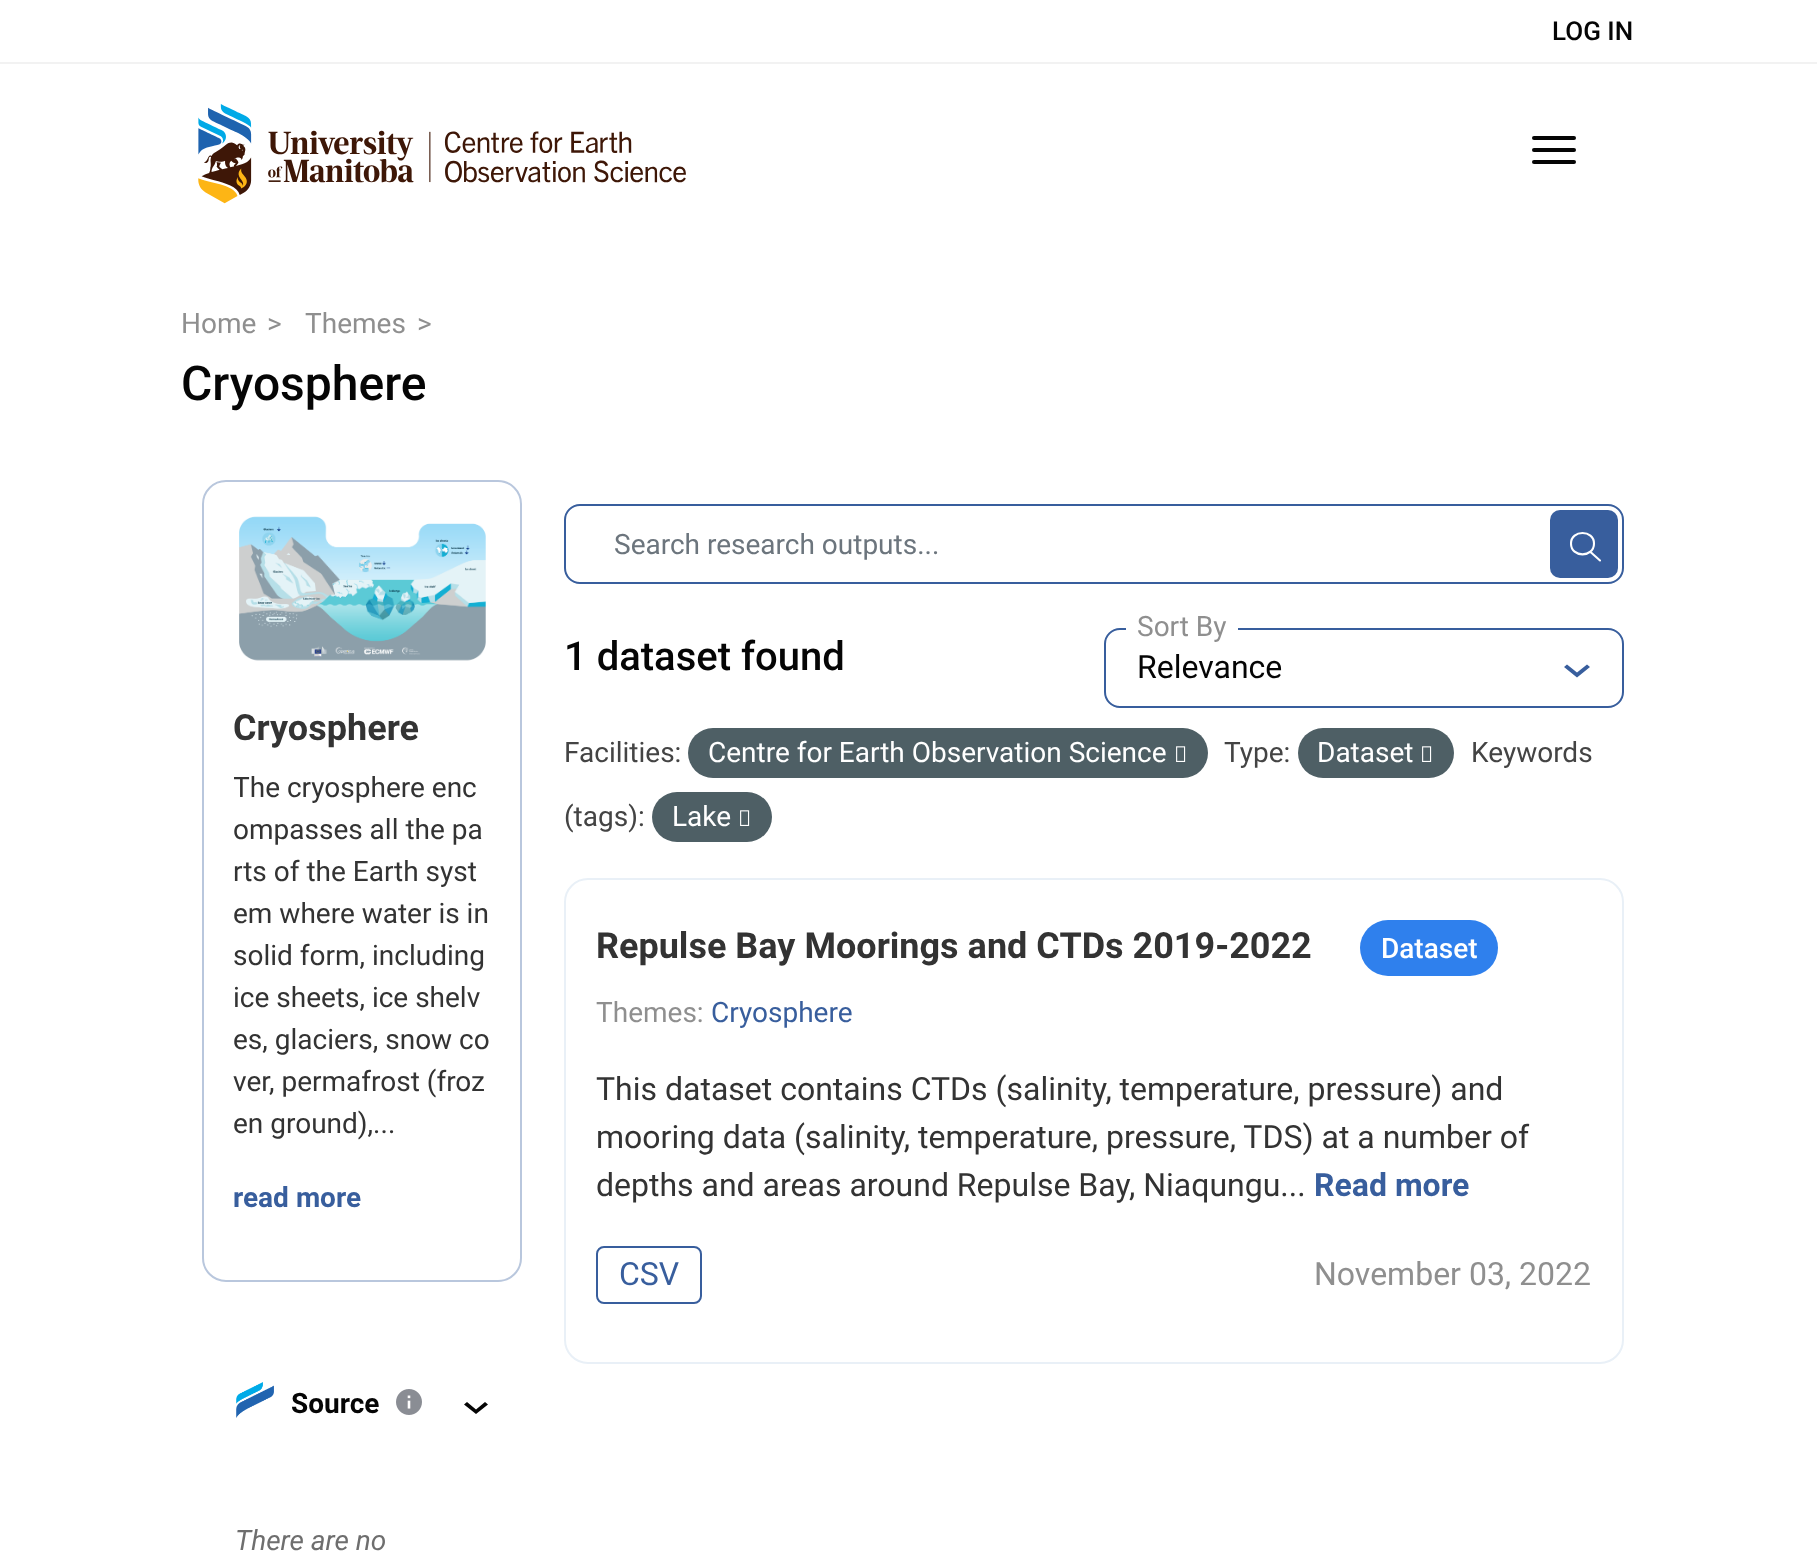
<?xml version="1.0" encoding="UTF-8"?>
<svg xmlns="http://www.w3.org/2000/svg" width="1817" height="1562">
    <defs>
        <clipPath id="clip1"><rect x="234" y="766" width="256" height="378"/></clipPath>
    </defs>
    <rect width="100%" height="100%" fill="#FFFFFF"/>
    <rect x="0" y="62" width="1817" height="2" fill="#F2F2F2"/>
    <text x="1552" y="40" font-family="Roboto" font-size="26" font-weight="500" fill="#050505">LOG IN</text>
    <image x="198" y="104" width="488" height="100" href="img_01.png"/>
    <rect x="1532" y="136" width="44" height="4" rx="2" fill="#050505"/>
    <rect x="1532" y="148" width="44" height="4" rx="2" fill="#050505"/>
    <rect x="1532" y="160" width="44" height="4" rx="2" fill="#050505"/>
    <text x="181" y="333" font-family="Roboto" font-size="28" fill="#8F8F8F">Home</text>
    <text x="267" y="333" font-family="Roboto" font-size="28" fill="#8F8F8F">&gt;</text>
    <text x="305" y="333" font-family="Roboto" font-size="28" fill="#8F8F8F">Themes</text>
    <text x="417" y="333" font-family="Roboto" font-size="28" fill="#8F8F8F">&gt;</text>
    <text x="181" y="400" font-family="Roboto" font-size="48" font-weight="500" fill="#050505">Cryosphere</text>
    <rect x="203" y="481" width="318" height="800" rx="23" fill="none" stroke="#B9C7DD" stroke-width="2"/>
    <image x="239" y="516" width="247" height="145" href="img_02.png"/>
    <text x="233" y="740" font-family="Roboto" font-size="36" font-weight="700" fill="#333333">Cryosphere</text>
    <g clip-path="url(#clip1)">
        <text x="233" y="797" font-family="Roboto" font-size="28" fill="#333333">The cryosphere enc</text>
    </g>
    <text font-family="Roboto" font-size="28" fill="#333333">
        <tspan x="233" y="839">ompasses all the pa</tspan>
        <tspan x="233" y="881">rts of the Earth syst</tspan>
        <tspan x="233" y="923">em where water is in</tspan>
        <tspan x="233" y="965">solid form, including</tspan>
        <tspan x="233" y="1007">ice sheets, ice shelv</tspan>
        <tspan x="233" y="1049">es, glaciers, snow co</tspan>
        <tspan x="233" y="1091">ver, permafrost (froz</tspan>
        <tspan x="233" y="1133">en ground),...</tspan>
    </text>
    <text x="233" y="1207" font-family="Roboto" font-size="28" font-weight="700" fill="#385E9D">read more</text>
    <image x="236" y="1382" width="38" height="36" href="img_03.png"/>
    <text x="291" y="1413" font-family="Roboto" font-size="28" font-weight="700" fill="#050505">Source</text>
    <image x="396" y="1389" width="26" height="26" href="img_04.png"/>
    <path d="M 464 1404.5 L 467 1402 L 476 1409.5 L 485 1402 L 488 1404.5 L 476 1414 Z" fill="#050505"/>
    <text x="235" y="1550" font-family="Roboto" font-size="28" font-style="italic" fill="#6E6E6E">There are no</text>
    <rect x="565" y="505" width="1058" height="78" rx="15" fill="none" stroke="#385E9D" stroke-width="2"/>
    <text x="614" y="554" font-family="Roboto" font-size="28" fill="#6C757D">Search research outputs...</text>
    <rect x="1550" y="510" width="68" height="68" rx="10" fill="#385E9D"/>
    <path d="M 1594 543.5 C 1594 558 1571 558 1571 543.5 C 1571 529.5 1594 529.5 1594 543.5 Z M 1590.5 552 L 1600 560.5" fill="none" stroke="#FFFFFF" stroke-width="2.1" stroke-linecap="round"/>
    <text x="564" y="670" font-family="Roboto" font-size="40" font-weight="500" fill="#050505">1 dataset found</text>
    <rect x="1105" y="629" width="518" height="78" rx="15" fill="none" stroke="#385E9D" stroke-width="2"/>
    <rect x="1126" y="628" width="112" height="2" fill="#FFFFFF"/>
    <text x="1137" y="636" font-family="Roboto" font-size="28" fill="#8F8F8F">Sort By</text>
    <text x="1137" y="678" font-family="Roboto" font-size="32" fill="#050505">Relevance</text>
    <path d="M 1564 667 L 1567 664.5 L 1577 672.5 L 1587 664.5 L 1590 667 L 1577 677.5 Z" fill="#385E9D"/>
    <text x="564" y="762" font-family="Roboto" font-size="28" fill="#444444">Facilities:</text>
    <rect x="688" y="728" width="520" height="50" rx="25" fill="#4E5F65"/>
    <text x="708" y="762" font-family="Roboto" font-size="28" fill="#FFFFFF">Centre for Earth Observation Science</text>
    <image x="1176" y="746" width="10" height="16" href="img_05.png"/>
    <text x="1224" y="762" font-family="Roboto" font-size="28" fill="#444444">Type:</text>
    <rect x="1298" y="728" width="156" height="50" rx="25" fill="#4E5F65"/>
    <text x="1317" y="762" font-family="Roboto" font-size="28" fill="#FFFFFF">Dataset</text>
    <image x="1422" y="746" width="10" height="16" href="img_05.png"/>
    <text x="1471" y="762" font-family="Roboto" font-size="28" fill="#444444">Keywords</text>
    <text x="564" y="826" font-family="Roboto" font-size="28" fill="#444444">(tags):</text>
    <rect x="652" y="792" width="120" height="50" rx="25" fill="#4E5F65"/>
    <text x="672" y="826" font-family="Roboto" font-size="28" fill="#FFFFFF">Lake</text>
    <image x="740" y="810" width="10" height="16" href="img_05.png"/>
    <rect x="565" y="879" width="1058" height="484" rx="23" fill="none" stroke="#E9F0F7" stroke-width="2"/>
    <text x="596" y="958" font-family="Roboto" font-size="36" font-weight="700" fill="#333333">Repulse Bay Moorings and CTDs 2019-2022</text>
    <rect x="1360" y="920" width="138" height="56" rx="28" fill="#2F80ED"/>
    <text x="1381" y="958" font-family="Roboto" font-size="28" font-weight="500" fill="#FFFFFF">Dataset</text>
    <text x="596" y="1022" font-family="Roboto" font-size="28" fill="#8F8F8F">Themes:</text>
    <text x="711" y="1022" font-family="Roboto" font-size="28" fill="#385E9D">Cryosphere</text>
    <text font-family="Roboto" font-size="32" fill="#333333">
        <tspan x="596" y="1100">This dataset contains CTDs (salinity, temperature, pressure) and</tspan>
        <tspan x="596" y="1148">mooring data (salinity, temperature, pressure, TDS) at a number of</tspan>
        <tspan x="596" y="1196">depths and areas around Repulse Bay, Niaqungu...</tspan>
    </text>
    <text x="1314" y="1196" font-family="Roboto" font-size="32" font-weight="700" fill="#385E9D">Read more</text>
    <rect x="597" y="1247" width="104" height="56" rx="7" fill="none" stroke="#385E9D" stroke-width="2"/>
    <text x="619" y="1285" font-family="Roboto" font-size="32" fill="#385E9D">CSV</text>
    <text x="1314" y="1285" font-family="Roboto" font-size="32" fill="#8F8F8F">November 03, 2022</text>
</svg>
